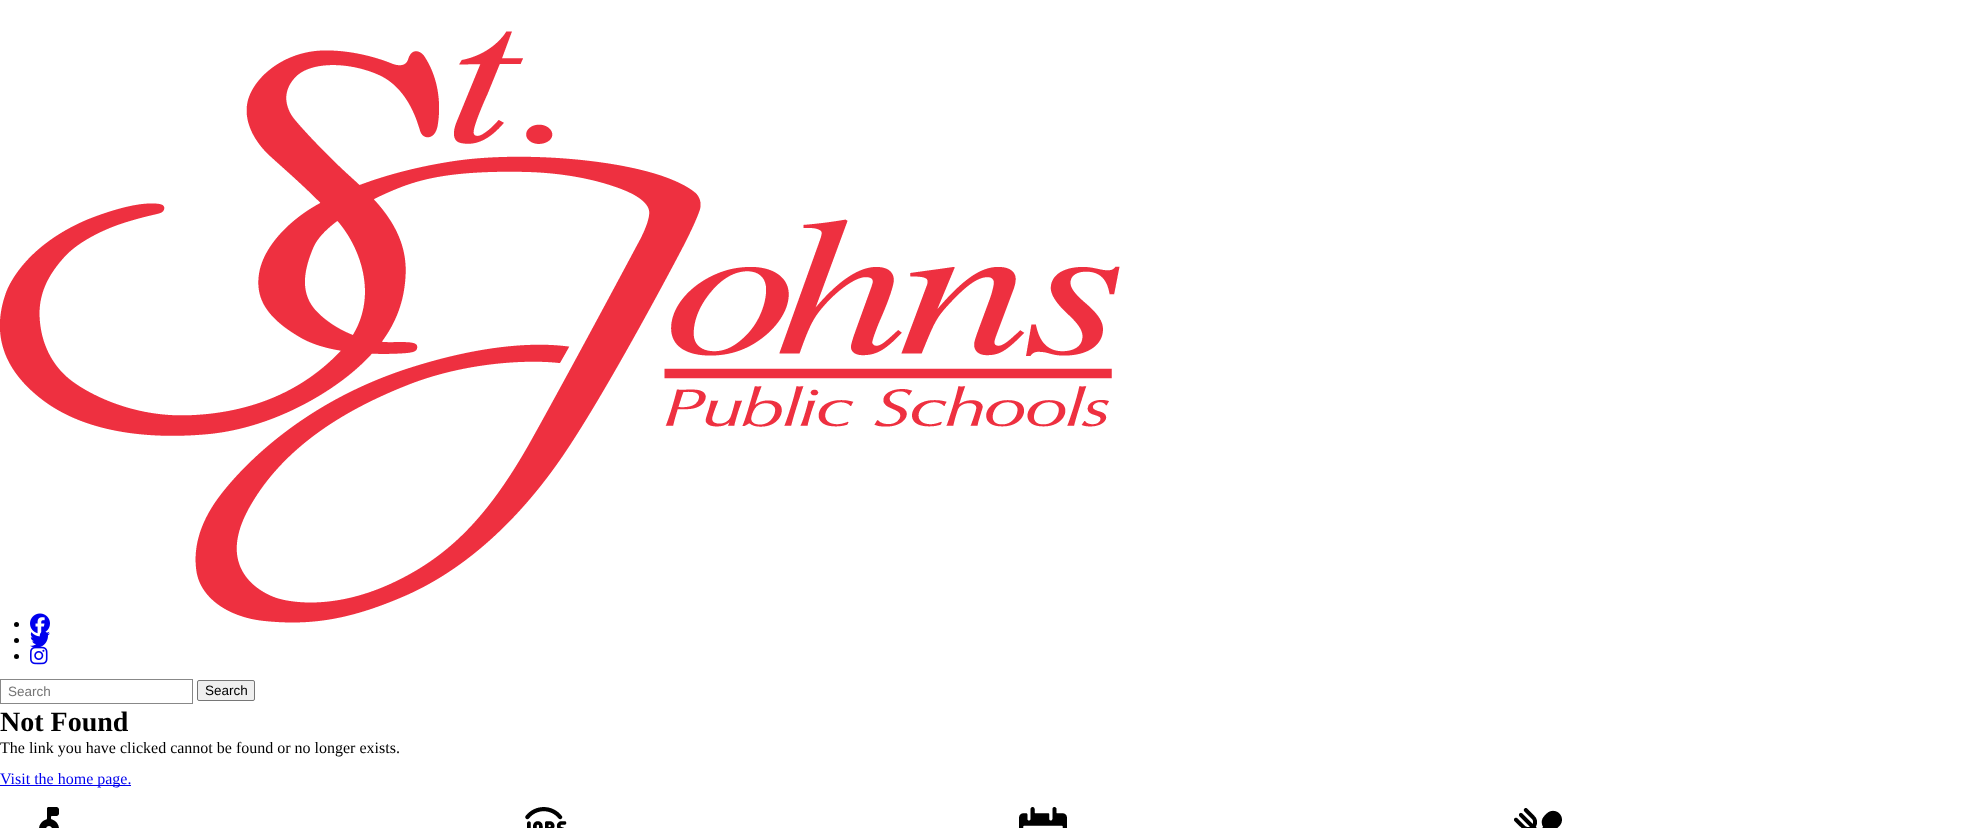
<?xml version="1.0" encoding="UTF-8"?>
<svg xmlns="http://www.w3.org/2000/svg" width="1986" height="828">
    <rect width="100%" height="100%" fill="#FFFFFF"/>
    <image x="0" y="31" width="1120" height="592" href="img_01.png"/>
    <circle cx="16.5" cy="624.5" r="2.5" fill="#000000"/>
    <image x="30" y="613" width="20" height="21" href="img_02.png"/>
    <circle cx="16.5" cy="640.5" r="2.5" fill="#000000"/>
    <image x="30" y="631" width="20" height="17" href="img_03.png"/>
    <circle cx="16.5" cy="656.5" r="2.5" fill="#000000"/>
    <image x="30" y="646" width="18" height="19" href="img_04.png"/>
    <rect x="0.5" y="679.5" width="192" height="24" fill="none" stroke="#888888"/>
    <text x="8" y="696" font-family="Liberation Sans" font-size="13.5" fill="#757575">Search</text>
    <rect x="197.5" y="680.5" width="57" height="20" rx="1.5" fill="#EFEFEF" stroke="#767676"/>
    <text x="205" y="695" font-family="Liberation Sans" font-size="13.5" fill="#000000">Search</text>
    <text x="0" y="731" font-family="Liberation Serif" font-size="28" font-weight="700" fill="#000000">Not Found</text>
    <text x="0" y="753" font-family="Liberation Serif" font-size="16" fill="#000000">The link you have clicked cannot be found or no longer exists.</text>
    <rect x="0" y="785" width="131" height="1" fill="#0000EE"/>
    <text x="0" y="784" font-family="Liberation Serif" font-size="16" fill="#0000EE">Visit the home page.</text>
    <image x="39" y="807" width="20" height="21" href="img_05.png"/>
    <image x="525" y="807" width="42" height="21" href="img_06.png"/>
    <image x="1019" y="807" width="48" height="21" href="img_07.png"/>
    <image x="1514" y="808" width="48" height="20" href="img_08.png"/>
</svg>
